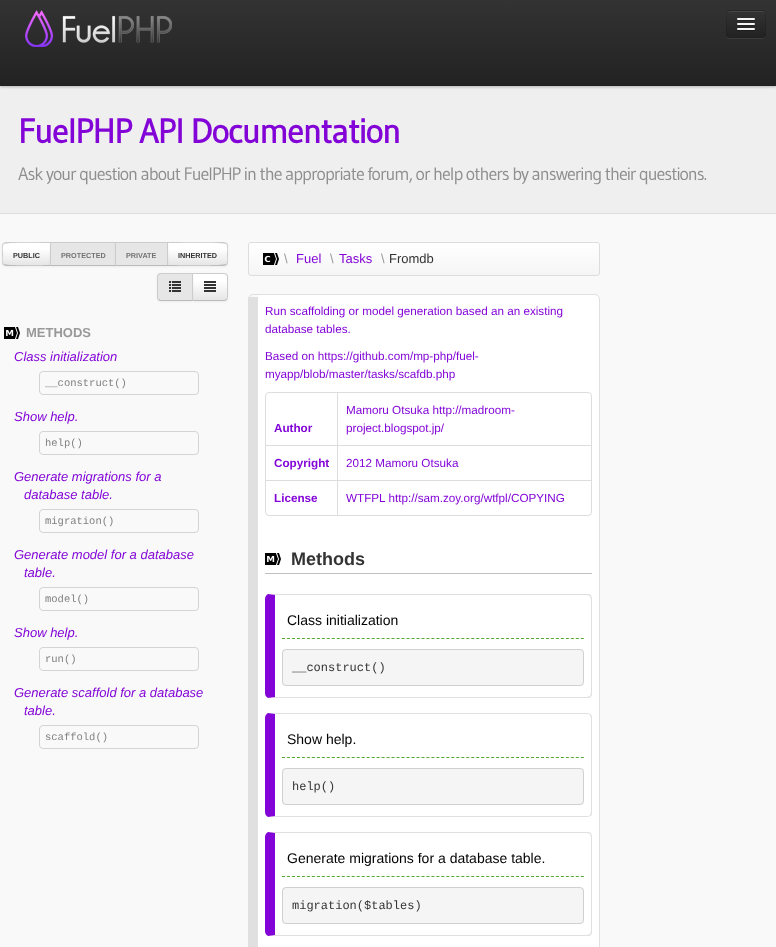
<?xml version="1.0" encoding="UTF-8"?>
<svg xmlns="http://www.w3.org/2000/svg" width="776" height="947">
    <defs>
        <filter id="blur1" x="-50%" y="-200%" width="200%" height="500%"><feGaussianBlur stdDeviation="1.5"/></filter>
        <linearGradient id="g1" gradientUnits="userSpaceOnUse" x1="388" y1="0" x2="388" y2="86"><stop offset="0" stop-color="#333333"/><stop offset="1" stop-color="#222222"/></linearGradient>
        <clipPath id="clip1"><rect x="726" y="10" width="40" height="28" rx="4"/></clipPath>
        <linearGradient id="g2" gradientUnits="userSpaceOnUse" x1="746" y1="11" x2="746" y2="37"><stop offset="0" stop-color="#333333"/><stop offset="1" stop-color="#222222"/></linearGradient>
        <filter id="blur2" x="-50%" y="-200%" width="200%" height="500%"><feGaussianBlur stdDeviation="1"/></filter>
        <linearGradient id="g3" gradientUnits="userSpaceOnUse" x1="27" y1="243" x2="27" y2="265"><stop offset="0" stop-color="#FFFFFF"/><stop offset="0.25" stop-color="#FFFFFF"/><stop offset="1" stop-color="#E6E6E6"/></linearGradient>
        <linearGradient id="g4" gradientUnits="userSpaceOnUse" x1="198" y1="243" x2="198" y2="265"><stop offset="0" stop-color="#FFFFFF"/><stop offset="0.25" stop-color="#FFFFFF"/><stop offset="1" stop-color="#E6E6E6"/></linearGradient>
        <linearGradient id="g5" gradientUnits="userSpaceOnUse" x1="210" y1="274" x2="210" y2="300"><stop offset="0" stop-color="#FFFFFF"/><stop offset="0.25" stop-color="#FFFFFF"/><stop offset="1" stop-color="#E6E6E6"/></linearGradient>
        <clipPath id="clip2"><rect x="248" y="242" width="352" height="34" rx="3"/></clipPath>
        <linearGradient id="g6" gradientUnits="userSpaceOnUse" x1="424" y1="243" x2="424" y2="275"><stop offset="0" stop-color="#FFFFFF"/><stop offset="1" stop-color="#F5F5F5"/></linearGradient>
    </defs>
    <rect width="100%" height="100%" fill="#F9F9F9"/>
    <rect x="0" y="86" width="776" height="127" fill="#EFEFEF"/>
    <rect x="0" y="213" width="776" height="1" fill="#DEDEDE"/>
    <rect x="0" y="1" width="776" height="86" fill="#000000" fill-opacity="0.25" filter="url(#blur1)"/>
    <rect x="0" y="0" width="776" height="85" fill="url(#g1)"/>
    <rect x="0" y="85" width="776" height="1" fill="#1F1F1F"/>
    <image x="25" y="10" width="147" height="37" href="img_01.png"/>
    <path d="M 726 34 C 726 40 731 39 735 39 H 757 C 761 39 766 40 766 34 C 766 36 764 38 762 38 H 730 C 728 38 726 36 726 34 Z" fill="#3B3B3B"/>
    <rect x="726" y="10" width="40" height="28" rx="4" fill="#2C2C2C"/>
    <g clip-path="url(#clip1)">
        <rect x="726" y="11" width="40" height="26" fill="url(#g2)"/>
    </g>
    <path d="M 730 12 H 762 C 764 12 765 13 765 15 C 765 10 761 11 756.5 11 H 735.5 C 731 11 727 10 727 15 C 727 13 728 12 730 12 Z" fill="#474747"/>
    <path d="M 764.5 36.5 C 764 37 763 37.5 762 37.5 H 730 C 729 37.5 728 37 727.5 36.5" fill="none" stroke="#212121"/>
    <path d="M 727.5 36.5 C 727 36 726.5 35 726.5 34 V 14 C 726.5 13 727 12 727.5 11.5 C 728 11 729 10.5 730 10.5 H 762 C 763 10.5 764 11 764.5 11.5 C 765 12 765.5 13 765.5 14 V 34 C 765.5 35 765 36 764.5 36.5" fill="none" stroke="#000000" stroke-opacity="0.1"/>
    <path d="M 737 19.5 C 736 21.5 740.5 21 740.5 21 H 751.5 C 751.5 21 756 21.5 755 19.5 C 754 20.5 747.5 20 746 20 C 744.5 20 738 20.5 737 19.5 Z" fill="#222222"/>
    <rect x="737" y="18" width="18" height="2" rx="1" fill="#F5F5F5"/>
    <path d="M 737 24.5 C 736 26.5 740.5 26 740.5 26 H 751.5 C 751.5 26 756 26.5 755 24.5 C 754 25.5 747.5 25 746 25 C 744.5 25 738 25.5 737 24.5 Z" fill="#202020"/>
    <rect x="737" y="23" width="18" height="2" rx="1" fill="#F5F5F5"/>
    <path d="M 737 29.5 C 736 31.5 740.5 31 740.5 31 H 751.5 C 751.5 31 756 31.5 755 29.5 C 754 30.5 747.5 30 746 30 C 744.5 30 738 30.5 737 29.5 Z" fill="#1D1D1D"/>
    <rect x="737" y="28" width="18" height="2" rx="1" fill="#F5F5F5"/>
    <text x="18" y="143" font-family="Gudea" font-size="34" font-weight="700" letter-spacing="-1" fill="#8304D7">FuelPHP API Documentation</text>
    <text x="18" y="180" font-family="Gudea" font-size="18" letter-spacing="-1" fill="#8E8E8E">Ask your question about FuelPHP in the appropriate forum, or help others by answering their questions.</text>
    <rect x="2" y="243" width="49" height="24" rx="4" fill="#000000" fill-opacity="0.05" filter="url(#blur2)"/>
    <path d="M 6 242 H 51 V 266 H 6 C 4 266 2 264 2 262 V 246 C 2 244 4 242 6 242 Z" fill="#FAFAFA"/>
    <rect x="3" y="243" width="47" height="22" fill="url(#g3)"/>
    <path d="M 6 242 L 3 243 L 4 244 C 6 242 45 243 50 243 L 51 242 Z" fill="#CCCCCC"/>
    <path d="M 51 266 L 50 265 C 45 265 6 266 4 264 L 3 265 L 6 266 Z" fill="#BBBBBB"/>
    <path d="M 2 246 V 262 C 2 263 2.5 264 3 265 L 4 264 C 2 262.5 3 256 3 254 C 3 252 2 245.5 4 244 L 3 243 C 2.5 244 2 245 2 246 Z" fill="#CCCCCC"/>
    <text x="13" y="258" font-family="Liberation Sans" font-size="7.25" font-weight="700" fill="#333333">PUBLIC</text>
    <rect x="50" y="243" width="66" height="24" fill="#000000" fill-opacity="0.05" filter="url(#blur2)"/>
    <rect x="51" y="243" width="64" height="22" fill="#E6E6E6"/>
    <rect x="50" y="242" width="66" height="1" fill="#CCCCCC"/>
    <rect x="50" y="265" width="66" height="1" fill="#BBBBBB"/>
    <rect x="50" y="242" width="1" height="24" fill="#CCCCCC"/>
    <text x="61" y="258" font-family="Liberation Sans" font-size="7.25" font-weight="700" fill="#737373">PROTECTED</text>
    <rect x="167" y="243" width="61" height="24" rx="4" fill="#000000" fill-opacity="0.05" filter="url(#blur2)"/>
    <path d="M 167 242 H 224 C 226 242 228 244 228 246 V 262 C 228 264 226 266 224 266 H 167 Z" fill="#FAFAFA"/>
    <rect x="168" y="243" width="59" height="22" fill="url(#g4)"/>
    <path d="M 167 242 L 168 243 C 175 243 224 242 226 244 L 227 243 L 224 242 Z" fill="#CCCCCC"/>
    <path d="M 228 262 V 246 C 228 245 227.5 244 227 243 L 226 244 C 228 245.5 227 252 227 254 C 227 256 228 262.5 226 264 L 227 265 C 227.5 264 228 263 228 262 Z" fill="#CCCCCC"/>
    <path d="M 224 266 L 227 265 L 226 264 C 224 266 175 265 168 265 L 167 266 Z" fill="#BBBBBB"/>
    <rect x="115" y="243" width="53" height="24" fill="#000000" fill-opacity="0.05" filter="url(#blur2)"/>
    <rect x="116" y="243" width="51" height="22" fill="#E6E6E6"/>
    <rect x="115" y="242" width="53" height="1" fill="#CCCCCC"/>
    <rect x="167" y="242" width="1" height="24" fill="#CCCCCC"/>
    <rect x="115" y="265" width="53" height="1" fill="#BBBBBB"/>
    <rect x="115" y="242" width="1" height="24" fill="#CCCCCC"/>
    <text x="126" y="258" font-family="Liberation Sans" font-size="7.25" font-weight="700" fill="#737373">PRIVATE</text>
    <text x="178" y="258" font-family="Liberation Sans" font-size="7.25" font-weight="700" fill="#333333">INHERITED</text>
    <rect x="192" y="274" width="36" height="28" rx="4" fill="#000000" fill-opacity="0.05" filter="url(#blur2)"/>
    <rect x="193" y="274" width="34" height="26" fill="url(#g5)"/>
    <path d="M 192 273 L 193 274 H 224 C 225 274 225.5 274.5 226 275 L 227 274 C 226 273.5 225 273 224 273 Z" fill="#CCCCCC"/>
    <path d="M 228 297 V 277 C 228 276 227.5 275 227 274 L 226 275 C 226.5 275.5 227 276 227 277 V 297 C 227 298 226.5 298.5 226 299 L 227 300 C 227.5 299 228 298 228 297 Z" fill="#CCCCCC"/>
    <path d="M 224 301 C 225 301 226 300.5 227 300 L 226 299 C 225.5 299.5 225 300 224 300 H 193 L 192 301 Z" fill="#BBBBBB"/>
    <rect x="157" y="274" width="36" height="28" rx="4" fill="#000000" fill-opacity="0.05" filter="url(#blur2)"/>
    <path d="M 161 273 H 193 V 301 H 161 C 159 301 157 299 157 297 V 277 C 157 275 159 273 161 273 Z" fill="#E6E6E6"/>
    <path d="M 161 273 C 160 273 159 273.5 158 274 L 159 275 C 159.5 274.5 160 274 161 274 H 192 L 193 273 Z" fill="#CCCCCC"/>
    <path d="M 193 273 L 192 274 V 300 L 193 301 Z" fill="#CCCCCC"/>
    <path d="M 193 301 L 192 300 H 161 C 160 300 159.5 299.5 159 299 L 158 300 C 159 300.5 160 301 161 301 Z" fill="#BBBBBB"/>
    <path d="M 157 277 V 297 C 157 298 157.5 299 158 300 L 159 299 C 158.5 298.5 158 298 158 297 V 277 C 158 276 158.5 275.5 159 275 L 158 274 C 157.5 275 157 276 157 277 Z" fill="#CCCCCC"/>
    <image x="169" y="281" width="12" height="11" href="img_02.png"/>
    <image x="204" y="281" width="12" height="11" href="img_03.png"/>
    <image x="4" y="327" width="16" height="12" href="img_04.png"/>
    <text x="26" y="337" font-family="Liberation Sans" font-size="13" font-weight="700" fill="#999999">METHODS</text>
    <text x="14" y="361" font-family="Liberation Sans" font-size="13" font-style="italic" fill="#8304D7">Class initialization</text>
    <rect x="39.5" y="371.5" width="159" height="23" rx="3.5" fill="none" stroke="#D4D4D4"/>
    <text x="45" y="386" font-family="Liberation Mono" font-size="10.5" fill="#808080">__construct()</text>
    <text x="14" y="421" font-family="Liberation Sans" font-size="13" font-style="italic" fill="#8304D7">Show help.</text>
    <rect x="39.5" y="431.5" width="159" height="23" rx="3.5" fill="none" stroke="#D4D4D4"/>
    <text x="45" y="446" font-family="Liberation Mono" font-size="10.5" fill="#808080">help()</text>
    <text x="14" y="481" font-family="Liberation Sans" font-size="13" font-style="italic" fill="#8304D7">Generate migrations for a</text>
    <text x="24" y="499" font-family="Liberation Sans" font-size="13" font-style="italic" fill="#8304D7">database table.</text>
    <rect x="39.5" y="509.5" width="159" height="23" rx="3.5" fill="none" stroke="#D4D4D4"/>
    <text x="45" y="524" font-family="Liberation Mono" font-size="10.5" fill="#808080">migration()</text>
    <text x="14" y="559" font-family="Liberation Sans" font-size="13" font-style="italic" fill="#8304D7">Generate model for a database</text>
    <text x="24" y="577" font-family="Liberation Sans" font-size="13" font-style="italic" fill="#8304D7">table.</text>
    <rect x="39.5" y="587.5" width="159" height="23" rx="3.5" fill="none" stroke="#D4D4D4"/>
    <text x="45" y="602" font-family="Liberation Mono" font-size="10.5" fill="#808080">model()</text>
    <text x="14" y="637" font-family="Liberation Sans" font-size="13" font-style="italic" fill="#8304D7">Show help.</text>
    <rect x="39.5" y="647.5" width="159" height="23" rx="3.5" fill="none" stroke="#D4D4D4"/>
    <text x="45" y="662" font-family="Liberation Mono" font-size="10.5" fill="#808080">run()</text>
    <text x="14" y="697" font-family="Liberation Sans" font-size="13" font-style="italic" fill="#8304D7">Generate scaffold for a database</text>
    <text x="24" y="715" font-family="Liberation Sans" font-size="13" font-style="italic" fill="#8304D7">table.</text>
    <rect x="39.5" y="725.5" width="159" height="23" rx="3.5" fill="none" stroke="#D4D4D4"/>
    <text x="45" y="740" font-family="Liberation Mono" font-size="10.5" fill="#808080">scaffold()</text>
    <g clip-path="url(#clip2)">
        <rect x="248" y="243" width="352" height="32" fill="url(#g6)"/>
    </g>
    <rect x="248.5" y="242.5" width="351" height="33" rx="2.5" fill="none" stroke="#DDDDDD"/>
    <image x="263" y="253" width="16" height="12" href="img_05.png"/>
    <text x="284" y="263" font-family="Liberation Sans" font-size="13" fill="#999999">\</text>
    <text x="296" y="263" font-family="Liberation Sans" font-size="13" fill="#8304D7">Fuel</text>
    <text x="330" y="263" font-family="Liberation Sans" font-size="13" fill="#999999">\</text>
    <text x="339" y="263" font-family="Liberation Sans" font-size="13" fill="#8304D7">Tasks</text>
    <text x="381" y="263" font-family="Liberation Sans" font-size="13" fill="#999999">\</text>
    <text x="389" y="263" font-family="Liberation Sans" font-size="13" fill="#333333">Fromdb</text>
    <path d="M 258 295 H 595 C 597 295 599 297 599 299 V 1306 C 599 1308 597 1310 595 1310 H 258 Z" fill="#FFFFFF"/>
    <rect x="248.5" y="294.5" width="351" height="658" rx="4.5" fill="none" stroke="#E0E0E0"/>
    <rect x="249" y="297" width="9" height="650" fill="#E0E0E0"/>
    <text font-family="Liberation Sans" font-size="11.7" fill="#8304D7">
        <tspan x="265" y="315">Run scaffolding or model generation based an an existing</tspan>
        <tspan x="265" y="333">database tables.</tspan>
    </text>
    <text font-family="Liberation Sans" font-size="11.7" fill="#8304D7">
        <tspan x="265" y="360">Based on https://github.com/mp-php/fuel-</tspan>
        <tspan x="265" y="378">myapp/blob/master/tasks/scafdb.php</tspan>
    </text>
    <rect x="265.5" y="392.5" width="326" height="123" rx="3.5" fill="none" stroke="#DDDDDD"/>
    <text x="274" y="432" font-family="Liberation Sans" font-size="11.7" font-weight="700" fill="#8304D7">Author</text>
    <rect x="337" y="393" width="1" height="52" fill="#DDDDDD"/>
    <text font-family="Liberation Sans" font-size="11.7" fill="#8304D7">
        <tspan x="346" y="414">Mamoru Otsuka http://madroom-</tspan>
        <tspan x="346" y="432">project.blogspot.jp/</tspan>
    </text>
    <rect x="266" y="445" width="325" height="1" fill="#DDDDDD"/>
    <text x="274" y="467" font-family="Liberation Sans" font-size="11.7" font-weight="700" fill="#8304D7">Copyright</text>
    <rect x="337" y="445" width="1" height="35" fill="#DDDDDD"/>
    <text x="346" y="467" font-family="Liberation Sans" font-size="11.7" fill="#8304D7">2012 Mamoru Otsuka</text>
    <rect x="266" y="480" width="325" height="1" fill="#DDDDDD"/>
    <text x="274" y="502" font-family="Liberation Sans" font-size="11.7" font-weight="700" fill="#8304D7">License</text>
    <rect x="337" y="480" width="1" height="35" fill="#DDDDDD"/>
    <text x="346" y="502" font-family="Liberation Sans" font-size="11.7" fill="#8304D7">WTFPL http://sam.zoy.org/wtfpl/COPYING</text>
    <rect x="265" y="573" width="327" height="1" fill="#C0C0C0"/>
    <image x="265" y="553" width="16" height="12" href="img_06.png"/>
    <text x="291" y="565" font-family="Liberation Sans" font-size="18" font-weight="700" fill="#333333">Methods</text>
    <path d="M 270 594 H 268 L 275 595 H 587 C 588 595 589 596 590 596 L 591 595 C 590 594 588 594 587 594 Z" fill="#E0E0E0"/>
    <path d="M 592 693 V 598 L 591 595 L 590 596 L 591 599 V 693 L 590 696 L 591 697 C 592 696 592 694 592 693 Z" fill="#E0E0E0"/>
    <path d="M 270 698 H 587 C 588 698 590 698 591 697 L 590 696 C 589 696 588 697 587 697 H 275 L 268 698 Z" fill="#E0E0E0"/>
    <path d="M 275 595 L 268 594 C 266 595 265 597 265 599 V 693 C 265 695 266 697 268 698 L 275 697 Z" fill="#8304D7"/>
    <path d="M 282 638.5 H 584" fill="none" stroke="#55A72F" stroke-dasharray="3 1.98"/>
    <text x="287" y="625" font-family="Liberation Sans" font-size="14" fill="#000000">Class initialization</text>
    <rect x="282" y="649" width="302" height="37" rx="4" fill="#F5F5F5"/>
    <rect x="282.5" y="649.5" width="301" height="36" rx="3.5" fill="none" stroke="#000000" stroke-opacity="0.15"/>
    <text x="292" y="671" font-family="Liberation Mono" font-size="12" fill="#333333">__construct()</text>
    <path d="M 270 713 H 268 L 275 714 H 587 C 588 714 589 714 590 715 L 591 714 C 590 714 588 713 587 713 Z" fill="#E0E0E0"/>
    <path d="M 592 812 V 717 L 591 714 L 590 715 L 591 718 V 812 L 590 815 L 591 816 C 592 815 592 814 592 812 Z" fill="#E0E0E0"/>
    <path d="M 270 817 H 587 C 588 817 590 816 591 816 L 590 815 C 589 816 588 816 587 816 H 275 L 268 817 Z" fill="#E0E0E0"/>
    <path d="M 275 714 L 268 713 C 266 714 265 716 265 718 V 812 C 265 814 266 816 268 817 L 275 816 Z" fill="#8304D7"/>
    <path d="M 282 757.5 H 584" fill="none" stroke="#55A72F" stroke-dasharray="3 1.98"/>
    <text x="287" y="744" font-family="Liberation Sans" font-size="14" fill="#000000">Show help.</text>
    <rect x="282" y="768" width="302" height="37" rx="4" fill="#F5F5F5"/>
    <rect x="282.5" y="768.5" width="301" height="36" rx="3.5" fill="none" stroke="#000000" stroke-opacity="0.15"/>
    <text x="292" y="790" font-family="Liberation Mono" font-size="12" fill="#333333">help()</text>
    <path d="M 270 832 H 268 L 275 833 H 587 C 588 833 589 834 590 834 L 591 833 C 590 832 588 832 587 832 Z" fill="#E0E0E0"/>
    <path d="M 592 931 V 836 L 591 833 L 590 834 L 591 837 V 931 L 590 934 L 591 935 C 592 934 592 932 592 931 Z" fill="#E0E0E0"/>
    <path d="M 270 936 H 587 C 588 936 590 936 591 935 L 590 934 C 589 934 588 935 587 935 H 275 L 268 936 Z" fill="#E0E0E0"/>
    <path d="M 275 833 L 268 832 C 266 833 265 835 265 837 V 931 C 265 933 266 935 268 936 L 275 935 Z" fill="#8304D7"/>
    <path d="M 282 876.5 H 584" fill="none" stroke="#55A72F" stroke-dasharray="3 1.98"/>
    <text x="287" y="863" font-family="Liberation Sans" font-size="14" fill="#000000">Generate migrations for a database table.</text>
    <rect x="282" y="887" width="302" height="37" rx="4" fill="#F5F5F5"/>
    <rect x="282.5" y="887.5" width="301" height="36" rx="3.5" fill="none" stroke="#000000" stroke-opacity="0.15"/>
    <text x="292" y="909" font-family="Liberation Mono" font-size="12" fill="#333333">migration($tables)</text>
</svg>
